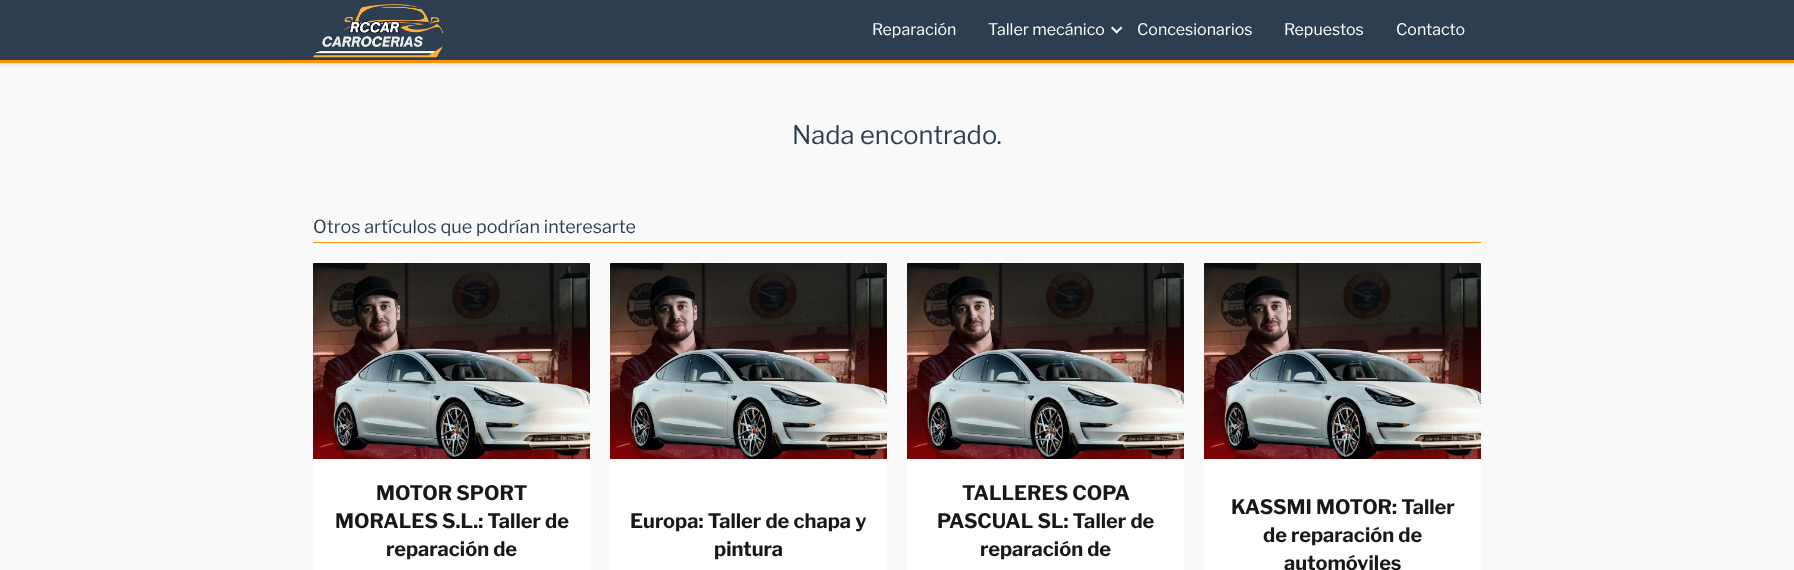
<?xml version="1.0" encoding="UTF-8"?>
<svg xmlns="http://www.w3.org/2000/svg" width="1794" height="570">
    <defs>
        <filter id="blur1" x="-50%" y="-200%" width="200%" height="500%"><feGaussianBlur stdDeviation="2"/></filter>
    </defs>
    <rect width="100%" height="100%" fill="#F9F9F9"/>
    <rect x="0" y="2" width="1794" height="63" fill="#000000" fill-opacity="0.1" filter="url(#blur1)"/>
    <rect x="0" y="0" width="1794" height="60" fill="#2C3E50"/>
    <rect x="0" y="60" width="1794" height="3" fill="#FF9202"/>
    <image x="313" y="4" width="130" height="54" href="img_01.png"/>
    <text x="872" y="35" font-family="Libre Franklin" font-size="16" font-weight="100" fill="#FFFFFF">Reparación</text>
    <text x="988" y="35" font-family="Libre Franklin" font-size="16" font-weight="100" fill="#FFFFFF">Taller mecánico</text>
    <path d="M 1121 26.5 L 1122.5 28 L 1116.5 33.5 L 1115.5 32 Z" fill="#FFFFFF"/>
    <path d="M 1112.5 26.5 L 1118 32 L 1116.5 33.5 L 1111 28 Z" fill="#FFFFFF"/>
    <text x="1137" y="35" font-family="Libre Franklin" font-size="16" font-weight="100" fill="#FFFFFF">Concesionarios</text>
    <text x="1284" y="35" font-family="Libre Franklin" font-size="16" font-weight="100" fill="#FFFFFF">Repuestos</text>
    <text x="1396" y="35" font-family="Libre Franklin" font-size="16" font-weight="100" fill="#FFFFFF">Contacto</text>
    <text x="792" y="144" font-family="Libre Franklin" font-size="25.5" font-weight="100" fill="#2C3E50">Nada encontrado.</text>
    <rect x="313" y="242" width="1168" height="1" fill="#FF9202"/>
    <text x="313" y="233" font-family="Libre Franklin" font-size="18" font-weight="100" fill="#2C3E50">Otros artículos que podrían interesarte</text>
    <rect x="313" y="263" width="277" height="307" fill="#FFFFFF"/>
    <image x="313" y="263" width="277" height="196" href="img_02.png"/>
    <text x="376" y="500" font-family="'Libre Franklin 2'" font-size="20" font-weight="100" fill="#181818">MOTOR SPORT</text>
    <text x="335" y="528" font-family="'Libre Franklin 2'" font-size="20" font-weight="100" fill="#181818">MORALES S.L.: Taller de</text>
    <text x="386" y="556" font-family="'Libre Franklin 2'" font-size="20" font-weight="100" fill="#181818">reparación de</text>
    <rect x="610" y="263" width="277" height="307" fill="#FFFFFF"/>
    <image x="610" y="263" width="277" height="196" href="img_02.png"/>
    <text x="630" y="528" font-family="'Libre Franklin 2'" font-size="20" font-weight="100" fill="#181818">Europa: Taller de chapa y</text>
    <text x="714" y="556" font-family="'Libre Franklin 2'" font-size="20" font-weight="100" fill="#181818">pintura</text>
    <rect x="907" y="263" width="277" height="307" fill="#FFFFFF"/>
    <image x="907" y="263" width="277" height="196" href="img_02.png"/>
    <text x="962" y="500" font-family="'Libre Franklin 2'" font-size="20" font-weight="100" fill="#181818">TALLERES COPA</text>
    <text x="937" y="528" font-family="'Libre Franklin 2'" font-size="20" font-weight="100" fill="#181818">PASCUAL SL: Taller de</text>
    <text x="980" y="556" font-family="'Libre Franklin 2'" font-size="20" font-weight="100" fill="#181818">reparación de</text>
    <rect x="1204" y="263" width="277" height="307" fill="#FFFFFF"/>
    <image x="1204" y="263" width="277" height="196" href="img_03.png"/>
    <text x="1231" y="514" font-family="'Libre Franklin 2'" font-size="20" font-weight="100" fill="#181818">KASSMI MOTOR: Taller</text>
    <text x="1263" y="542" font-family="'Libre Franklin 2'" font-size="20" font-weight="100" fill="#181818">de reparación de</text>
    <text x="1284" y="570" font-family="'Libre Franklin 2'" font-size="20" font-weight="100" fill="#181818">automóviles</text>
</svg>
